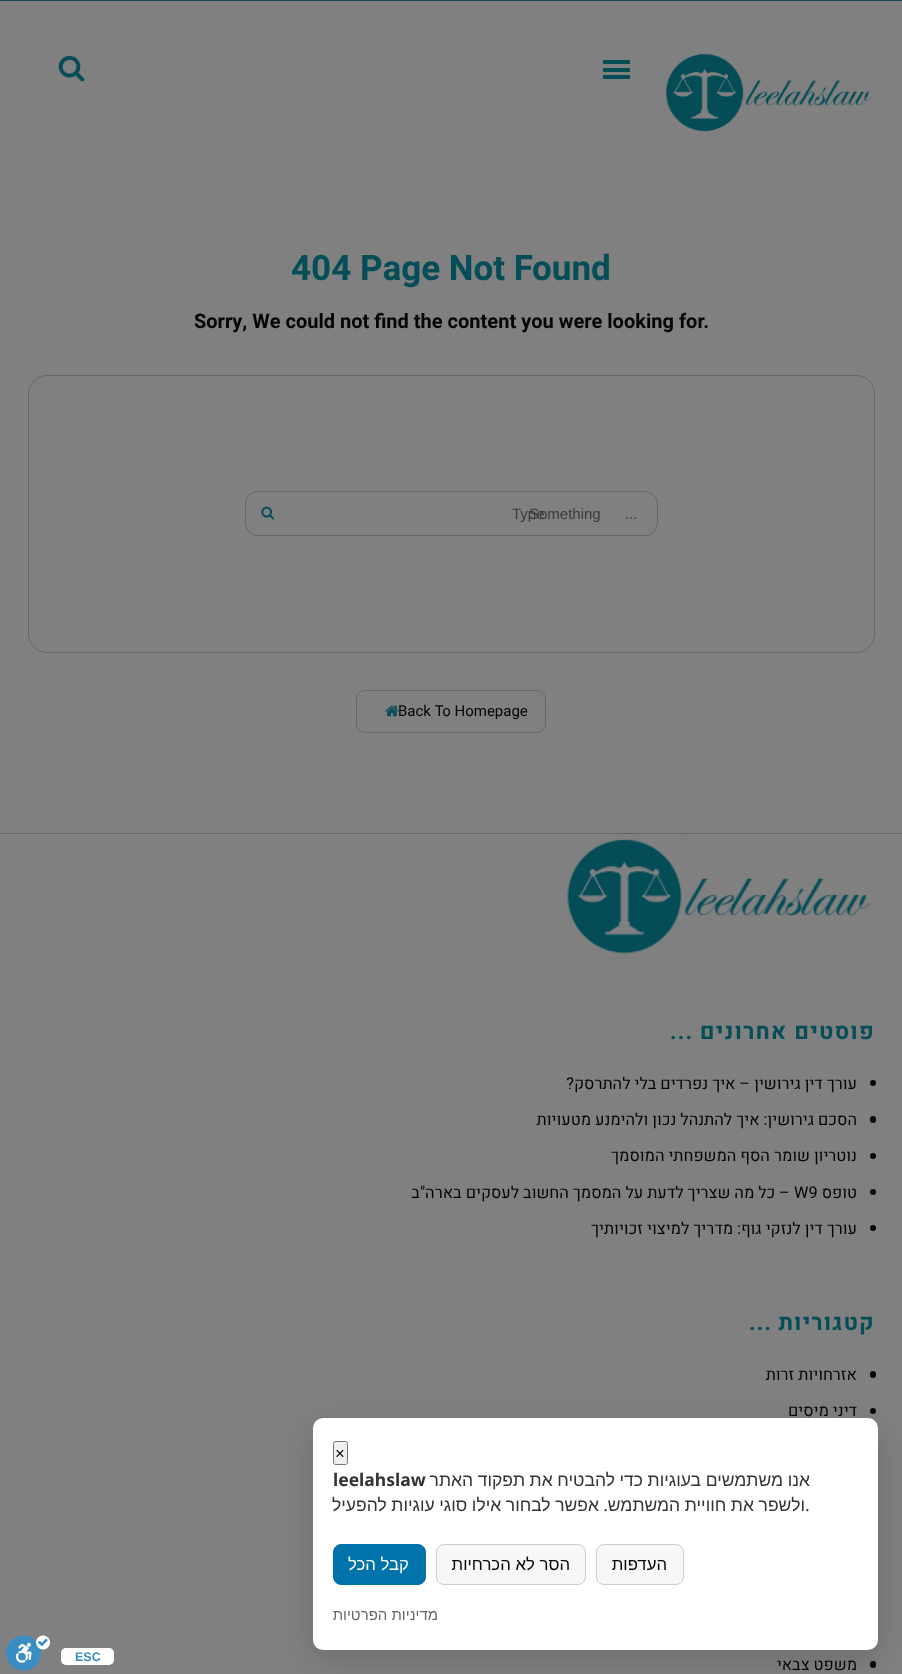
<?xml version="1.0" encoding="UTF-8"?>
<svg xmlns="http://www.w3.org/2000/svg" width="902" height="1674">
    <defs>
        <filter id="blur1" x="-50%" y="-200%" width="200%" height="500%"><feGaussianBlur stdDeviation="15"/></filter>
    </defs>
    <rect width="100%" height="100%" fill="#808080"/>
    <image x="663" y="50" width="209" height="85" href="img_01.png"/>
    <rect x="603" y="68" width="27" height="4" fill="#054D57"/>
    <rect x="603" y="60" width="27" height="4" fill="#054D57"/>
    <rect x="603" y="75" width="27" height="4" fill="#054D57"/>
    <image x="58" y="55" width="27" height="27" href="img_02.png"/>
    <text x="291" y="280" font-family="Heebo" font-size="35" font-weight="700" fill="#054D57">404 Page Not Found</text>
    <text x="194" y="328" font-family="Heebo" font-size="20" font-weight="700" fill="#050505">Sorry, We could not find the content you were looking for.</text>
    <rect x="28.5" y="375.5" width="846" height="277" rx="18.5" fill="none" stroke="#666666"/>
    <rect x="245.5" y="491.5" width="412" height="44" rx="12.5" fill="none" stroke="#666666"/>
    <text x="512" y="519" font-family="Liberation Sans" font-size="15" fill="#3B3B3B">Type</text>
    <text x="529" y="519" word-spacing="20" font-family="Liberation Sans" font-size="15" fill="#3B3B3B">Something ...</text>
    <image x="261" y="506" width="13" height="14" href="img_03.png"/>
    <rect x="356.5" y="690.5" width="189" height="42" rx="8.5" fill="none" stroke="#666666"/>
    <text x="398" y="716" font-family="Heebo" font-size="15" fill="#050505">Back To Homepage</text>
    <image x="385" y="705" width="14" height="12" href="img_04.png"/>
    <rect x="0" y="833" width="902" height="1" fill="#666666"/>
    <image x="563" y="833" width="308" height="126" href="img_05.png"/>
    <text x="875" y="1039" font-family="Heebo" font-size="22.5" font-weight="700" letter-spacing="1.25" direction="rtl" fill="#054D57">פוסטים אחרונים</text>
    <text x="670" y="1039" font-family="Heebo" font-size="22.5" font-weight="700" letter-spacing="1.25" fill="#054D57">...</text>
    <circle cx="873" cy="1083" r="3" fill="#050505"/>
    <text x="857" y="1089" font-family="Heebo" font-size="16.25" direction="rtl" fill="#050505">עורך דין גירושין – איך נפרדים בלי להתרסק?</text>
    <rect x="870" y="1116" width="6" height="7" rx="3" fill="#050505"/>
    <text x="857" y="1125" font-family="Heebo" font-size="16.25" direction="rtl" fill="#050505">הסכם גירושין: איך להתנהל נכון ולהימנע מטעויות</text>
    <circle cx="873" cy="1156" r="3" fill="#050505"/>
    <text x="857" y="1161" font-family="Heebo" font-size="16.25" direction="rtl" fill="#050505">נוטריון שומר הסף המשפחתי המוסמך</text>
    <circle cx="873" cy="1192" r="3" fill="#050505"/>
    <text x="857" y="1198" font-family="Heebo" font-size="16.25" direction="rtl" fill="#050505">טופס</text>
    <text x="794" y="1198" font-family="Heebo" font-size="16.25" fill="#050505">W9</text>
    <text x="790" y="1198" font-family="Heebo" font-size="16.25" direction="rtl" fill="#050505">– כל מה שצריך לדעת על המסמך החשוב לעסקים בארה"ב</text>
    <circle cx="873" cy="1228" r="3" fill="#050505"/>
    <text x="857" y="1234" font-family="Heebo" font-size="16.25" direction="rtl" fill="#050505">עורך דין לנזקי גוף: מדריך למיצוי זכויותיך</text>
    <text x="875" y="1330" font-family="Heebo" font-size="22.5" font-weight="700" letter-spacing="1.25" direction="rtl" fill="#054D57">קטגוריות</text>
    <text x="749" y="1330" font-family="Heebo" font-size="22.5" font-weight="700" letter-spacing="1.25" fill="#054D57">...</text>
    <rect x="870" y="1371" width="6" height="7" rx="3" fill="#050505"/>
    <text x="857" y="1380" font-family="Heebo" font-size="16.25" direction="rtl" fill="#050505">אזרחויות זרות</text>
    <circle cx="873" cy="1411" r="3" fill="#050505"/>
    <text x="857" y="1416" font-family="Heebo" font-size="16.25" direction="rtl" fill="#050505">דיני מיסים</text>
    <rect x="870" y="1661" width="6" height="7" rx="3" fill="#050505"/>
    <text x="857" y="1670" font-family="Heebo" font-size="16.25" direction="rtl" fill="#050505">משפט צבאי</text>
    <rect x="313" y="1428" width="565" height="232" rx="10" fill="#000000" fill-opacity="0.15" filter="url(#blur1)"/>
    <rect x="313" y="1418" width="565" height="232" rx="10" fill="#FFFFFF"/>
    <rect x="333.5" y="1441.5" width="14" height="23" rx="2" fill="#EFEFEF" stroke="#767676"/>
    <text x="335" y="1459" font-family="Liberation Sans" font-size="16.75" fill="#050505">×</text>
    <text x="810" y="1486" word-spacing="-0.25" font-family="Liberation Sans" font-size="17.5" direction="rtl" fill="#333333">אנו משתמשים בעוגיות כדי להבטיח את תפקוד האתר</text>
    <text x="333" y="1486" font-family="Noto Sans" font-size="17.5" font-weight="700" fill="#333333">leelahslaw</text>
    <text x="805" y="1511" font-family="Noto Sans" font-size="17.5" fill="#333333">.</text>
    <text x="805" y="1511" word-spacing="-0.25" font-family="Liberation Sans" font-size="17.5" direction="rtl" fill="#333333">ולשפר את חוויית המשתמש</text>
    <text x="608" y="1511" font-family="Noto Sans" font-size="17.5" direction="rtl" fill="#333333">.</text>
    <text x="599" y="1511" word-spacing="-0.25" font-family="Liberation Sans" font-size="17.5" direction="rtl" fill="#333333">אפשר לבחור אילו סוגי עוגיות להפעיל</text>
    <rect x="596.5" y="1544.5" width="87" height="40" rx="7.5" fill="#F7F7F7" stroke="#CCCCCC"/>
    <text x="667" y="1570" font-family="Liberation Sans" font-size="16.75" direction="rtl" fill="#050505">העדפות</text>
    <rect x="436.5" y="1544.5" width="149" height="40" rx="7.5" fill="#F7F7F7" stroke="#CCCCCC"/>
    <text x="570" y="1570" font-family="Liberation Sans" font-size="16.75" direction="rtl" fill="#050505">הסר לא הכרחיות</text>
    <rect x="333.5" y="1544.5" width="92" height="40" rx="7.5" fill="#0073AA" stroke="#0073AA"/>
    <text x="409" y="1570" font-family="Liberation Sans" font-size="16.75" direction="rtl" fill="#FFFFFF">קבל הכל</text>
    <text x="438" y="1620" font-family="Liberation Sans" font-size="15" direction="rtl" fill="#666666">מדיניות הפרטיות</text>
    <rect x="0" y="0" width="902" height="1" fill="#15495F"/>
    <rect x="61" y="1648" width="53" height="17" rx="5" fill="#FFFFFF"/>
    <text x="75" y="1661" font-family="Liberation Sans" font-size="12.5" font-weight="700" fill="#3A8DC2">ESC</text>
    <image x="6" y="1635" width="44" height="36" href="img_06.png"/>
</svg>
